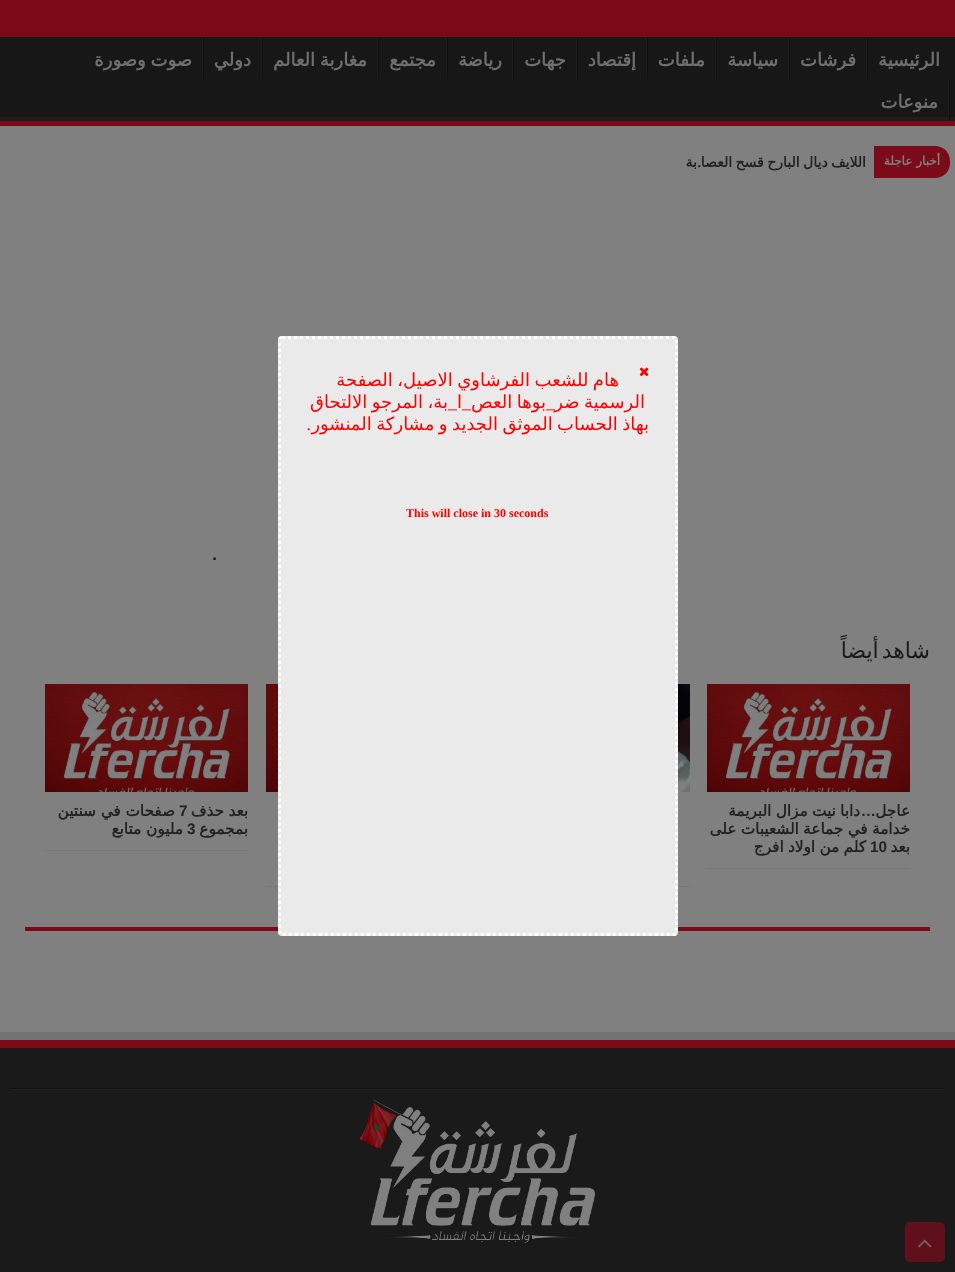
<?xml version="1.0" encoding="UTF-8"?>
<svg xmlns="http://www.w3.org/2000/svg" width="955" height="1272">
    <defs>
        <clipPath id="clip1"><rect x="0" y="37" width="955" height="84"/></clipPath>
    </defs>
    <rect width="100%" height="100%" fill="#808080"/>
    <rect x="0" y="0" width="955" height="37" fill="#7C0B1A"/>
    <rect x="0" y="37" width="955" height="80" fill="#171717"/>
    <g clip-path="url(#clip1)">
        <path d="M -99 -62 H 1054 V 220 H -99 Z M -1 31 H 954 L 955 32 V 116 L 954 117 H -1 L -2 116 V 32 Z" fill="#1D1D1D" fill-rule="evenodd"/>
    </g>
    <rect x="0" y="121" width="955" height="5" fill="#7C0B1A"/>
    <text x="940" y="66" font-family="DejaVu Sans" font-size="18" font-weight="700" direction="rtl" fill="#6F6F6F">الرئيسية</text>
    <rect x="867" y="37" width="1" height="42" fill="#111111"/>
    <rect x="866" y="37" width="1" height="42" fill="#1C1C1C"/>
    <text x="856" y="66" font-family="DejaVu Sans" font-size="18" font-weight="700" direction="rtl" fill="#6F6F6F">فرشات</text>
    <rect x="789" y="37" width="1" height="42" fill="#111111"/>
    <rect x="788" y="37" width="1" height="42" fill="#1C1C1C"/>
    <text x="778" y="66" font-family="DejaVu Sans" font-size="18" font-weight="700" direction="rtl" fill="#6F6F6F">سياسة</text>
    <rect x="716" y="37" width="1" height="42" fill="#111111"/>
    <rect x="715" y="37" width="1" height="42" fill="#1C1C1C"/>
    <text x="705" y="66" font-family="DejaVu Sans" font-size="18" font-weight="700" direction="rtl" fill="#6F6F6F">ملفات</text>
    <rect x="647" y="37" width="1" height="42" fill="#111111"/>
    <rect x="646" y="37" width="1" height="42" fill="#1C1C1C"/>
    <text x="636" y="66" font-family="DejaVu Sans" font-size="18" font-weight="700" direction="rtl" fill="#6F6F6F">إقتصاد</text>
    <rect x="577" y="37" width="1" height="42" fill="#111111"/>
    <rect x="576" y="37" width="1" height="42" fill="#1C1C1C"/>
    <text x="566" y="66" font-family="DejaVu Sans" font-size="18" font-weight="700" direction="rtl" fill="#6F6F6F">جهات</text>
    <rect x="513" y="37" width="1" height="42" fill="#111111"/>
    <rect x="512" y="37" width="1" height="42" fill="#1C1C1C"/>
    <text x="502" y="66" font-family="DejaVu Sans" font-size="18" font-weight="700" direction="rtl" fill="#6F6F6F">رياضة</text>
    <rect x="447" y="37" width="1" height="42" fill="#111111"/>
    <rect x="446" y="37" width="1" height="42" fill="#1C1C1C"/>
    <text x="436" y="66" font-family="DejaVu Sans" font-size="18" font-weight="700" direction="rtl" fill="#6F6F6F">مجتمع</text>
    <rect x="378" y="37" width="1" height="42" fill="#111111"/>
    <rect x="377" y="37" width="1" height="42" fill="#1C1C1C"/>
    <text x="367" y="66" word-spacing="-1" font-family="DejaVu Sans" font-size="18" font-weight="700" direction="rtl" fill="#6F6F6F">مغاربة العالم</text>
    <rect x="262" y="37" width="1" height="42" fill="#111111"/>
    <rect x="261" y="37" width="1" height="42" fill="#1C1C1C"/>
    <text x="251" y="66" font-family="DejaVu Sans" font-size="18" font-weight="700" direction="rtl" fill="#6F6F6F">دولي</text>
    <rect x="203" y="37" width="1" height="42" fill="#111111"/>
    <rect x="202" y="37" width="1" height="42" fill="#1C1C1C"/>
    <text x="192" y="66" word-spacing="-1" font-family="DejaVu Sans" font-size="18" font-weight="700" direction="rtl" fill="#6F6F6F">صوت وصورة</text>
    <rect x="949" y="79" width="1" height="42" fill="#111111"/>
    <rect x="948" y="79" width="1" height="42" fill="#1C1C1C"/>
    <text x="938" y="108" font-family="DejaVu Sans" font-size="18" font-weight="700" direction="rtl" fill="#6F6F6F">منوعات</text>
    <path d="M 874 146 H 935 C 943.5 146 950 152.5 950 161 V 163 C 950 171.5 943.5 178 935 178 H 874 Z" fill="#7C0B1A"/>
    <text x="940" y="165" font-family="DejaVu Sans" font-size="12" font-weight="700" direction="rtl" fill="#808080">أخبار عاجلة</text>
    <text x="866" y="167" word-spacing="-1" font-family="DejaVu Sans" font-size="14" font-weight="700" direction="rtl" fill="#222222">اللايف ديال البارح قسح العصا</text>
    <text x="701" y="167" font-family="Liberation Serif" font-size="14" font-weight="700" direction="rtl" fill="#222222">.</text>
    <text x="697" y="167" font-family="DejaVu Sans" font-size="14" font-weight="700" direction="rtl" fill="#222222">بة</text>
    <text x="217" y="560" font-family="Liberation Sans" font-size="17" font-weight="700" direction="rtl" fill="#1A1A1A">.</text>
    <text x="930" y="658" word-spacing="-4" font-family="DejaVu Sans" font-size="22" direction="rtl" fill="#1A1A1A">شاهد أيضاً</text>
    <rect x="25" y="927" width="905" height="4" fill="#7C0B1A"/>
    <image x="707" y="684" width="203" height="108" href="img_01.png"/>
    <text x="910" y="816" font-family="DejaVu Sans" font-size="15.25" font-weight="700" direction="rtl" fill="#222222">عاجل</text>
    <text x="876" y="816" font-family="Liberation Sans" font-size="15.25" font-weight="700" direction="rtl" fill="#222222">…</text>
    <text x="860" y="816" word-spacing="-0.5" font-family="DejaVu Sans" font-size="15.25" font-weight="700" direction="rtl" fill="#222222">دابا نيت مزال البريمة</text>
    <text font-family="DejaVu Sans" font-size="15.25" font-weight="700" direction="rtl" fill="#222222">
        <tspan x="910" y="834" word-spacing="-0.5">خدامة في جماعة الشعيبات على</tspan>
        <tspan x="910" y="852">بعد</tspan>
    </text>
    <text x="870" y="852" font-family="Liberation Sans" font-size="15.25" font-weight="700" fill="#222222">10</text>
    <text x="866" y="852" word-spacing="-0.5" font-family="DejaVu Sans" font-size="15.25" font-weight="700" direction="rtl" fill="#222222">كلم من اولاد افرج</text>
    <rect x="707" y="868" width="203" height="1" fill="#797979"/>
    <image x="678" y="684" width="12" height="108" href="img_02.png"/>
    <rect x="678" y="886" width="12" height="1" fill="#797979"/>
    <image x="266" y="684" width="12" height="108" href="img_03.png"/>
    <rect x="266" y="886" width="12" height="1" fill="#797979"/>
    <image x="45" y="684" width="203" height="108" href="img_01.png"/>
    <text x="248" y="816" word-spacing="-0.5" font-family="DejaVu Sans" font-size="15.25" font-weight="700" direction="rtl" fill="#222222">بعد حذف</text>
    <text x="179" y="816" font-family="Liberation Sans" font-size="15.25" font-weight="700" fill="#222222">7</text>
    <text x="175" y="816" font-family="DejaVu Sans" font-size="15.25" font-weight="700" direction="rtl" fill="#222222">صفحات في سنتين</text>
    <text x="248" y="834" font-family="DejaVu Sans" font-size="15.25" font-weight="700" direction="rtl" fill="#222222">بمجموع</text>
    <text x="187" y="834" font-family="Liberation Sans" font-size="15.25" font-weight="700" fill="#222222">3</text>
    <text x="183" y="834" font-family="DejaVu Sans" font-size="15.25" font-weight="700" direction="rtl" fill="#222222">مليون متابع</text>
    <rect x="45" y="850" width="203" height="1" fill="#797979"/>
    <rect x="0" y="1032" width="955" height="8" fill="#737373"/>
    <rect x="0" y="1048" width="955" height="224" fill="#1A1A1A"/>
    <rect x="0" y="1040" width="955" height="8" fill="#7C0B1A"/>
    <rect x="10" y="1088" width="935" height="1" fill="#111111"/>
    <rect x="10" y="1089" width="935" height="1" fill="#222222"/>
    <image x="359" y="1099" width="236" height="144" href="img_04.png"/>
    <rect x="278" y="336" width="400" height="600" rx="4" fill="#EAEAEA"/>
    <path d="M 282 337.5 H 674 C 675.5 337.5 676.5 338.5 676.5 340 V 932 C 676.5 933.5 675.5 934.5 674 934.5 H 282 C 280.5 934.5 279.5 933.5 279.5 932 V 340 C 279.5 338.5 280.5 337.5 282 337.5 Z" fill="none" stroke="#FFFFFF" stroke-width="3" stroke-dasharray="3 3"/>
    <image x="639" y="367" width="10" height="10" href="img_05.png"/>
    <text x="619" y="386" word-spacing="-1.25" font-family="DejaVu Sans" font-size="18" direction="rtl" fill="#FF0000">هام للشعب الفرشاوي الاصيل، الصفحة</text>
    <text x="555" y="408" font-family="Liberation Serif" font-size="18" direction="rtl" fill="#FF0000">_</text>
    <text x="645" y="408" word-spacing="-1.25" font-family="DejaVu Sans" font-size="18" direction="rtl" fill="#FF0000">الرسمية ضر</text>
    <text x="546" y="408" word-spacing="-1.25" font-family="DejaVu Sans" font-size="18" direction="rtl" fill="#FF0000">بوها العص</text>
    <text x="471" y="408" font-family="Liberation Serif" font-size="18" direction="rtl" fill="#FF0000">_</text>
    <text x="462" y="408" font-family="DejaVu Sans" font-size="18" direction="rtl" fill="#FF0000">ا</text>
    <text x="457" y="408" font-family="Liberation Serif" font-size="18" direction="rtl" fill="#FF0000">_</text>
    <text x="448" y="408" word-spacing="-1.25" font-family="DejaVu Sans" font-size="18" direction="rtl" fill="#FF0000">بة، المرجو الالتحاق</text>
    <text x="649" y="430" word-spacing="-1.25" font-family="DejaVu Sans" font-size="18" direction="rtl" fill="#FF0000">بهاذ الحساب الموثق الجديد و مشاركة المنشور</text>
    <text x="311" y="430" font-family="Liberation Serif" font-size="18" direction="rtl" fill="#FF0000">.</text>
    <text x="406" y="517" font-family="Liberation Serif" font-size="12" font-weight="700" fill="#FF0000">This will close in 30 seconds</text>
    <rect x="905" y="1222" width="40" height="40" rx="5" fill="#5F101A"/>
    <image x="918" y="1239" width="14" height="9" href="img_06.png"/>
</svg>
